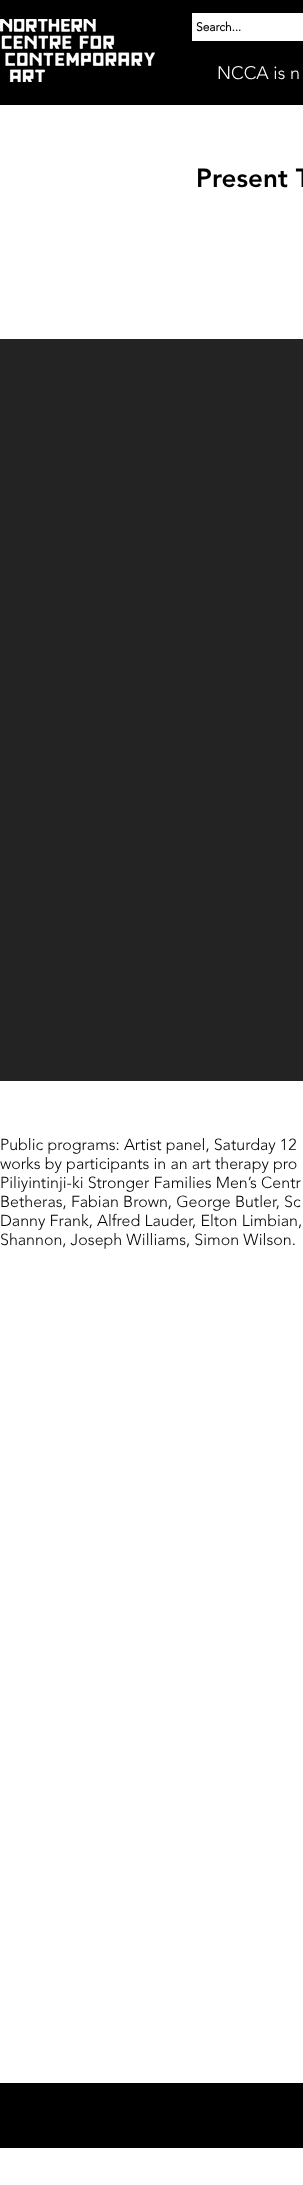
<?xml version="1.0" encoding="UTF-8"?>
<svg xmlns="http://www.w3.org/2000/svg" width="303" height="2185">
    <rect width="100%" height="100%" fill="#FFFFFF"/>
    <rect x="0" y="0" width="303" height="105" fill="#000000"/>
    <image x="0" y="19" width="155" height="63" href="img_01.png"/>
    <rect x="192" y="13" width="111" height="28" fill="#FFFFFF"/>
    <text x="196" y="31" font-family="'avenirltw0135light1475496'" font-size="12" font-weight="700" fill="#000000">Search...</text>
    <text x="217" y="79" font-family="'avenirltw0135light1475496'" font-size="18" font-weight="300" fill="#FFFFFF">NCCA is n</text>
    <text x="196" y="187" font-family="'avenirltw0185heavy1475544'" font-size="26" font-weight="900" fill="#000000">Present T</text>
    <rect x="0" y="339" width="303" height="742" fill="#242323"/>
    <text font-family="'avenirltw0135light1475496'" font-size="16" font-weight="300" fill="#000000">
        <tspan x="0" y="1150">Public programs: Artist panel, Saturday 12</tspan>
        <tspan x="0" y="1169">works by participants in an art therapy pro</tspan>
        <tspan x="0" y="1188">Piliyintinji-ki Stronger Families Men’s Centr</tspan>
        <tspan x="0" y="1207">Betheras, Fabian Brown, George Butler, Sc</tspan>
        <tspan x="0" y="1226">Danny Frank, Alfred Lauder, Elton Limbian,</tspan>
        <tspan x="0" y="1245">Shannon, Joseph Williams, Simon Wilson.</tspan>
    </text>
    <rect x="0" y="2083" width="303" height="65" fill="#000000"/>
</svg>
